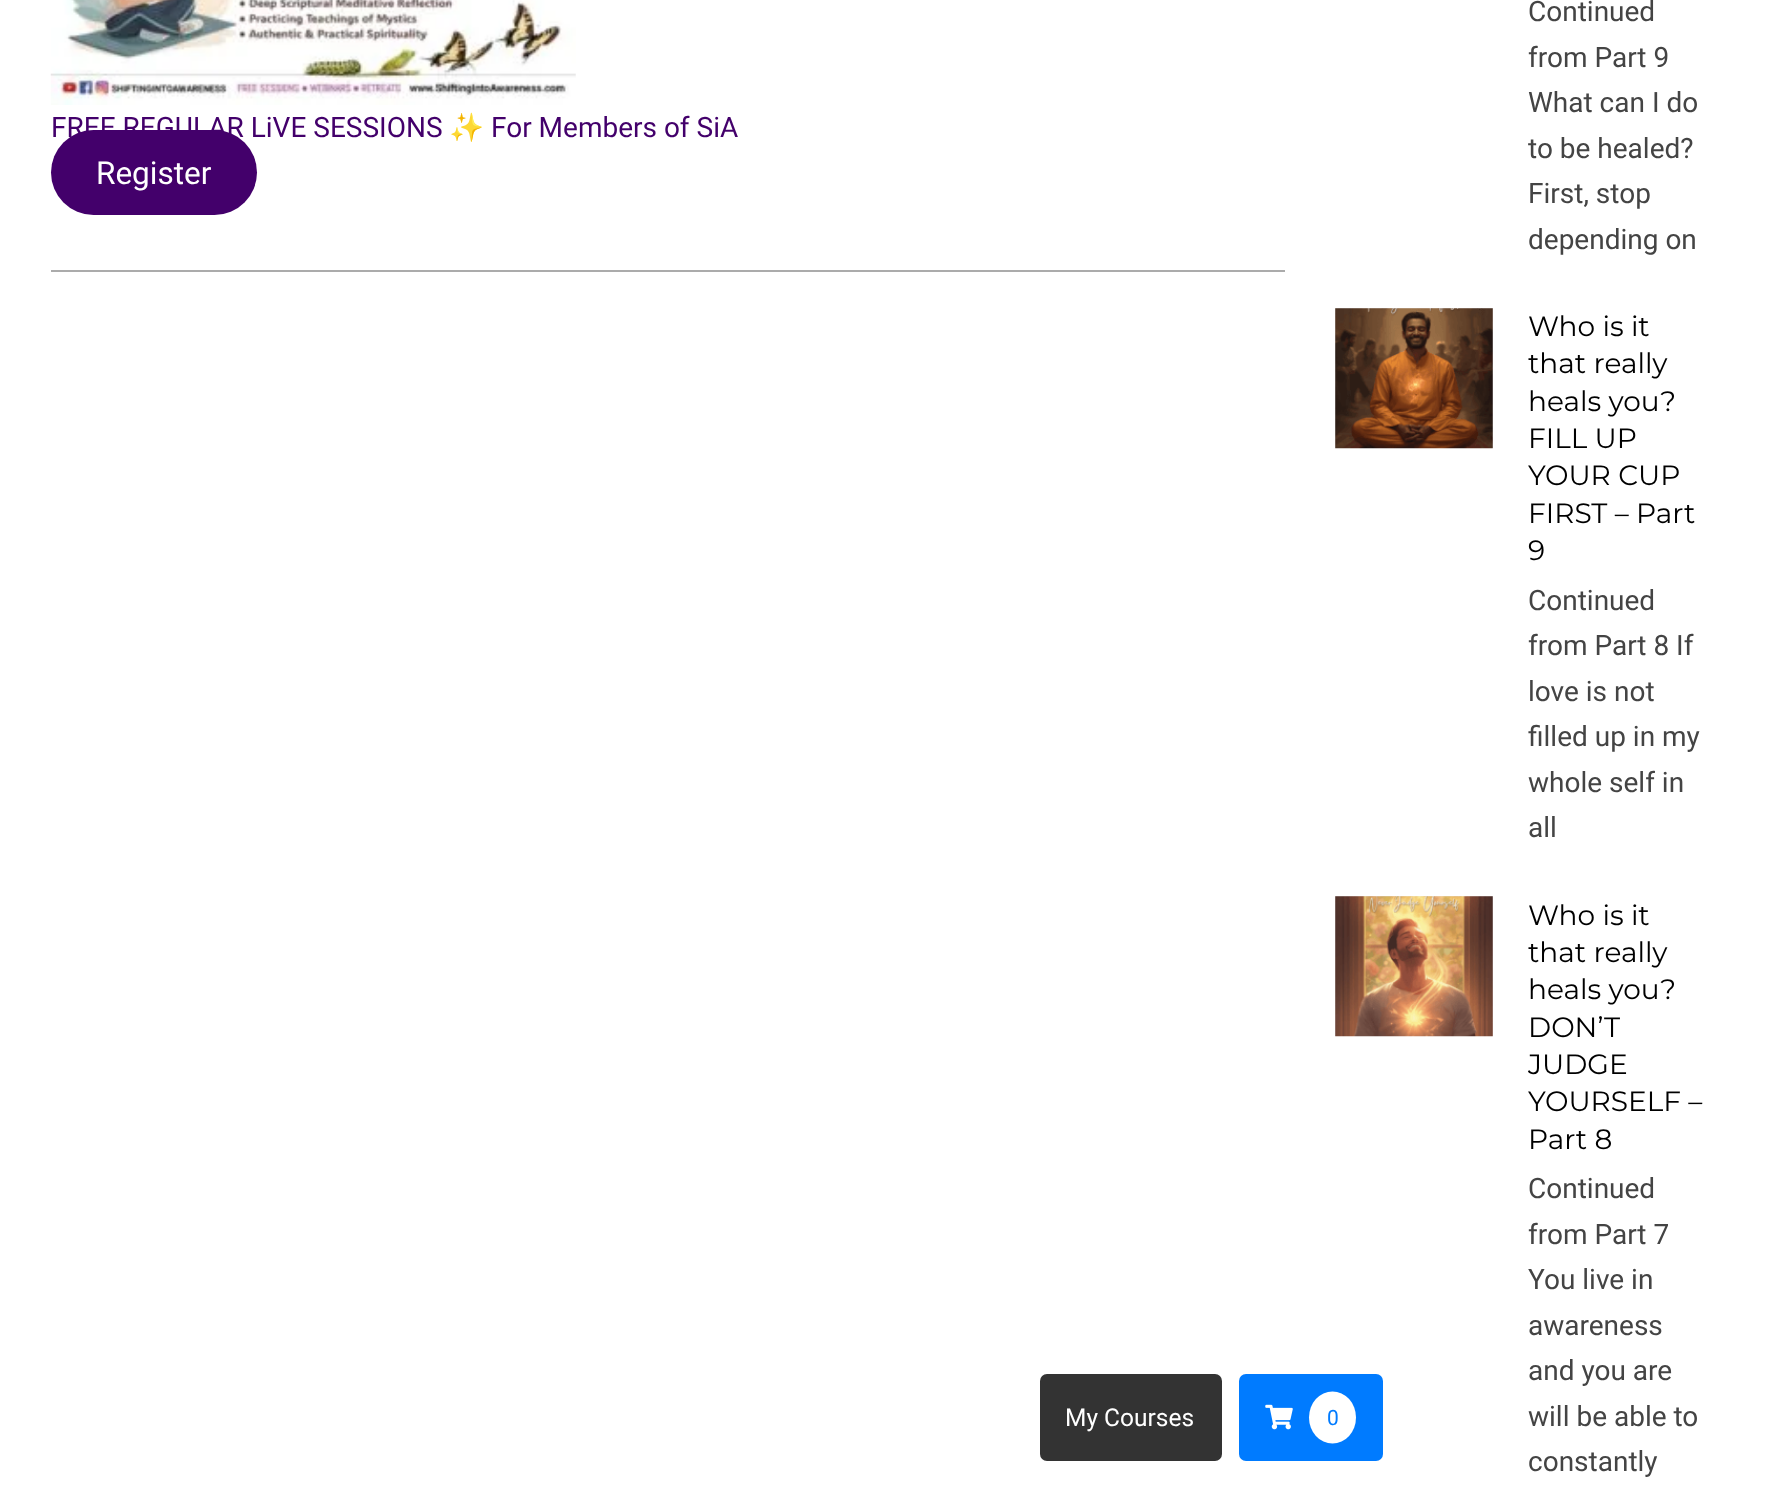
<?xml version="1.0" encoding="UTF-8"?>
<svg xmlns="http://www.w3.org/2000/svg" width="1767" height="1496">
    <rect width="100%" height="100%" fill="#FFFFFF"/>
    <rect x="51" y="270" width="1234" height="2" fill="#ABABAB"/>
    <image x="50" y="0" width="526" height="105" href="img_01.png"/>
    <text x="51" y="137" font-family="Roboto" font-size="28" fill="#43006B">FREE REGULAR LiVE SESSIONS</text>
    <text x="449" y="137" font-family="Noto Color Emoji" font-size="28" fill="#43006B">✨️</text>
    <text x="491" y="137" font-family="Roboto" font-size="28" fill="#43006B">For Members of SiA</text>
    <rect x="51" y="130" width="206" height="85" rx="42.5" fill="#43006B"/>
    <text x="96" y="184" font-family="Roboto" font-size="31.5" fill="#FFFFFF">Register</text>
    <text font-family="Roboto" font-size="28" fill="#444444">
        <tspan x="1528" y="21">Continued</tspan>
        <tspan x="1528" y="67">from Part 9</tspan>
        <tspan x="1528" y="112">What can I do</tspan>
        <tspan x="1528" y="158">to be healed?</tspan>
        <tspan x="1528" y="203">First, stop</tspan>
        <tspan x="1528" y="249">depending on</tspan>
    </text>
    <rect x="1335" y="308" width="158" height="140" fill="#E6E6E6"/>
    <image x="1335" y="308" width="158" height="141" href="img_02.png"/>
    <text font-family="Montserrat" font-size="28" fill="#000000">
        <tspan x="1528" y="336">Who is it</tspan>
        <tspan x="1528" y="373">that really</tspan>
        <tspan x="1528" y="411">heals you?</tspan>
        <tspan x="1528" y="448">FILL UP</tspan>
        <tspan x="1528" y="485">YOUR CUP</tspan>
        <tspan x="1528" y="523">FIRST – Part</tspan>
        <tspan x="1528" y="560">9</tspan>
    </text>
    <text font-family="Roboto" font-size="28" fill="#444444">
        <tspan x="1528" y="610">Continued</tspan>
        <tspan x="1528" y="655">from Part 8 If</tspan>
        <tspan x="1528" y="701">love is not</tspan>
        <tspan x="1528" y="746">filled up in my</tspan>
        <tspan x="1528" y="792">whole self in</tspan>
        <tspan x="1528" y="837">all</tspan>
    </text>
    <rect x="1335" y="896" width="158" height="140" fill="#E6E6E6"/>
    <image x="1335" y="896" width="158" height="141" href="img_03.png"/>
    <text font-family="Montserrat" font-size="28" fill="#000000">
        <tspan x="1528" y="925">Who is it</tspan>
        <tspan x="1528" y="962">that really</tspan>
        <tspan x="1528" y="999">heals you?</tspan>
        <tspan x="1528" y="1037">DON’T</tspan>
        <tspan x="1528" y="1074">JUDGE</tspan>
        <tspan x="1528" y="1111">YOURSELF –</tspan>
        <tspan x="1528" y="1149">Part 8</tspan>
    </text>
    <text font-family="Roboto" font-size="28" fill="#444444">
        <tspan x="1528" y="1198">Continued</tspan>
        <tspan x="1528" y="1244">from Part 7</tspan>
        <tspan x="1528" y="1289">You live in</tspan>
        <tspan x="1528" y="1335">awareness</tspan>
        <tspan x="1528" y="1380">and you are</tspan>
        <tspan x="1528" y="1426">will be able to</tspan>
        <tspan x="1528" y="1471">constantly</tspan>
    </text>
    <rect x="1040" y="1374" width="182" height="87" rx="7" fill="#333333"/>
    <text x="1065" y="1426" font-family="Roboto" font-size="24.5" fill="#FFFFFF">My Courses</text>
    <rect x="1239" y="1374" width="144" height="87" rx="7" fill="#007BFF"/>
    <image x="1265" y="1404" width="28" height="26" href="img_04.png"/>
    <ellipse cx="1332.5" cy="1417.5" rx="23.5" ry="26" fill="#FFFFFF"/>
    <text x="1327" y="1425" font-family="Roboto" font-size="21" fill="#007BFF">0</text>
</svg>
